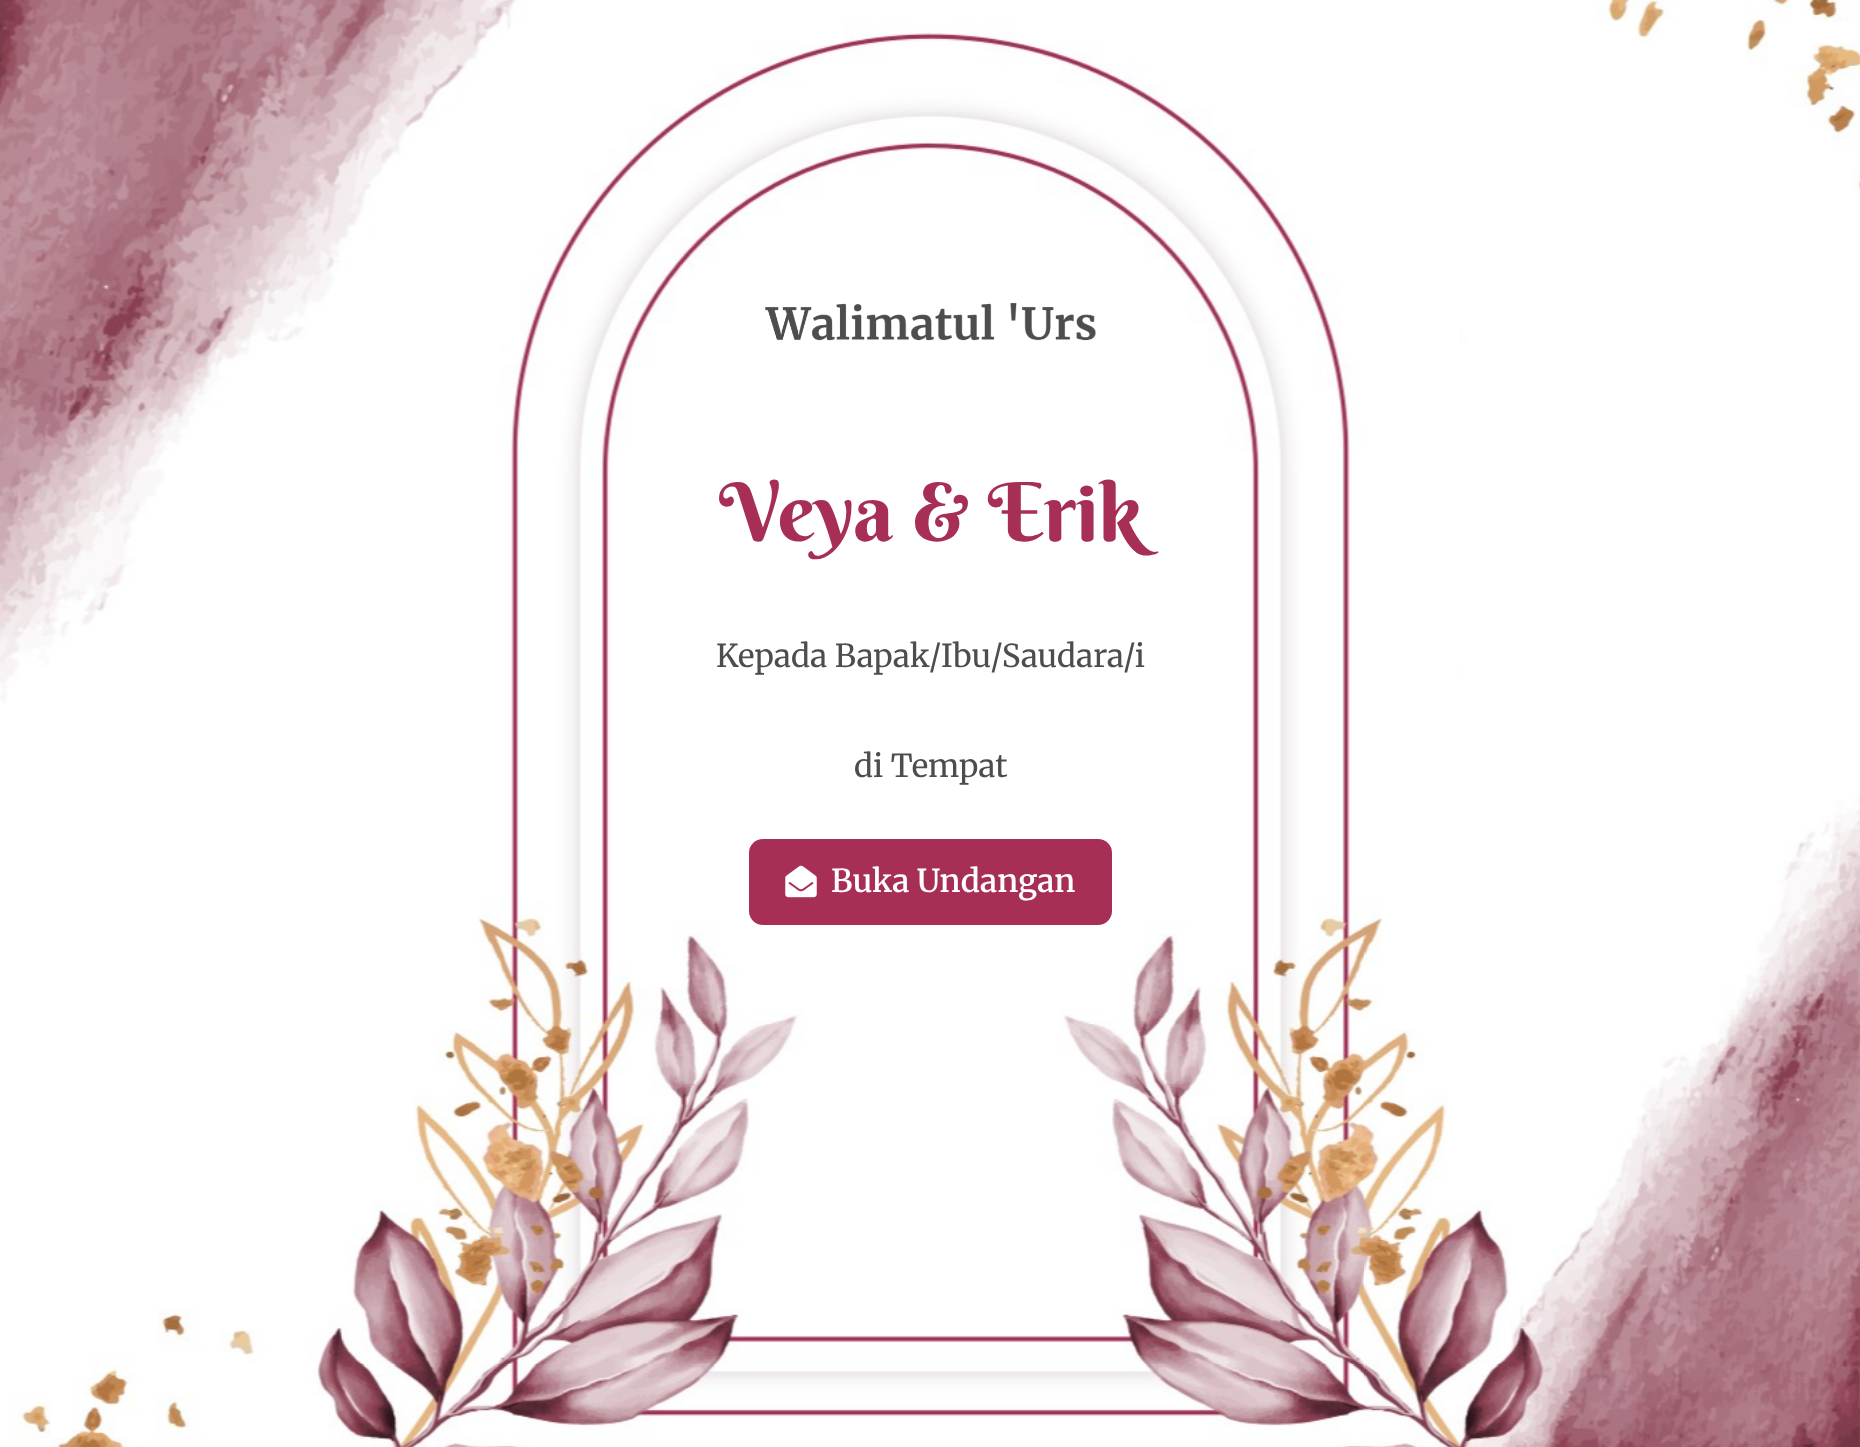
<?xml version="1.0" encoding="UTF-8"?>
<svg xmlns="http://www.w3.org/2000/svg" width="1860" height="1447">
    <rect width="100%" height="100%" fill="#FFFFFF"/>
    <image x="0" y="0" width="1860" height="1447" href="img_01.png"/>
    <image x="765" y="302" width="331" height="39" href="img_02.png"/>
    <text x="719" y="541" font-family="Berkshire Swash" font-size="81" fill="#A72F55">Veya &amp; Erik</text>
    <text x="716" y="667" font-family="Merriweather" font-size="31.5" fill="#4D4D4D">Kepada Bapak/Ibu/Saudara/i</text>
    <text x="854" y="777" font-family="Merriweather" font-size="31.5" fill="#4D4D4D">di Tempat</text>
    <rect x="749" y="839" width="363" height="86" rx="14" fill="#A72F55"/>
    <image x="785" y="865" width="32" height="33" href="img_03.png"/>
    <text x="831" y="892" font-family="Merriweather" font-size="31.5" font-weight="600" fill="#FFFFFF">Buka Undangan</text>
</svg>
